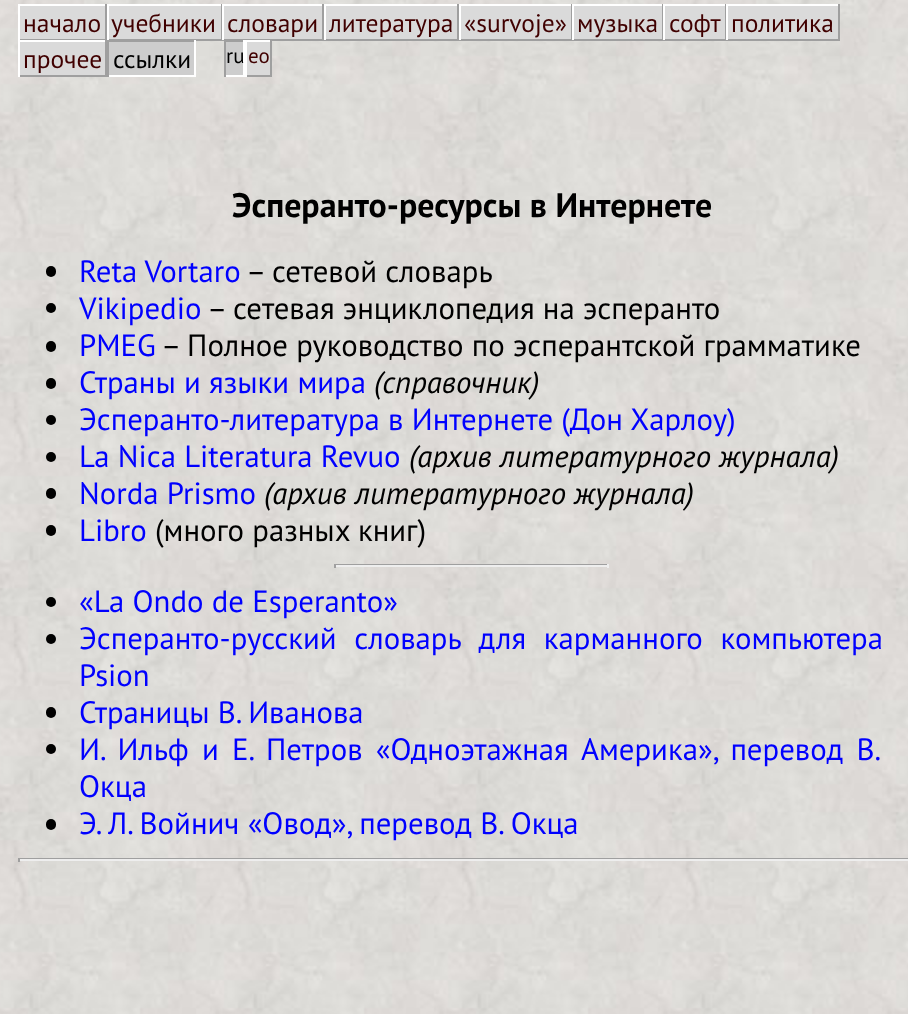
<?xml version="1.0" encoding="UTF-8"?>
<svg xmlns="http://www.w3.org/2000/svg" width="908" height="1014">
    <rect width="100%" height="100%" fill="#FFFFFF"/>
    <image x="0" y="0" width="908" height="1014" href="img_01.png"/>
    <rect x="20" y="6" width="85" height="33" fill="#DADADA"/>
    <rect x="18" y="4" width="822" height="2" fill="#FFFFFF"/>
    <rect x="105" y="4" width="2" height="36" fill="#9F9F9F"/>
    <rect x="18" y="39" width="89" height="1" fill="#9F9F9F"/>
    <rect x="18" y="4" width="2" height="36" fill="#FFFFFF"/>
    <text x="23" y="32" font-family="PT Sans" font-size="25.5" fill="#400000">начало</text>
    <rect x="109" y="6" width="112" height="33" fill="#DADADA"/>
    <rect x="221" y="4" width="1" height="36" fill="#9F9F9F"/>
    <rect x="107" y="39" width="115" height="2" fill="#9F9F9F"/>
    <rect x="107" y="4" width="2" height="36" fill="#FFFFFF"/>
    <text x="111" y="32" font-family="PT Sans" font-size="25.5" fill="#400000">учебники</text>
    <rect x="224" y="6" width="98" height="33" fill="#DADADA"/>
    <rect x="322" y="4" width="2" height="36" fill="#9F9F9F"/>
    <rect x="222" y="39" width="102" height="2" fill="#9F9F9F"/>
    <rect x="222" y="4" width="2" height="36" fill="#FFFFFF"/>
    <text x="227" y="32" font-family="PT Sans" font-size="25.5" fill="#400000">словари</text>
    <rect x="326" y="6" width="131" height="33" fill="#DADADA"/>
    <rect x="457" y="4" width="2" height="36" fill="#9F9F9F"/>
    <rect x="324" y="39" width="135" height="2" fill="#9F9F9F"/>
    <rect x="324" y="4" width="2" height="36" fill="#FFFFFF"/>
    <text x="329" y="32" font-family="PT Sans" font-size="25.5" fill="#400000">литература</text>
    <rect x="461" y="6" width="110" height="33" fill="#DADADA"/>
    <rect x="571" y="4" width="1" height="36" fill="#9F9F9F"/>
    <rect x="459" y="39" width="113" height="2" fill="#9F9F9F"/>
    <rect x="459" y="4" width="2" height="36" fill="#FFFFFF"/>
    <text x="464" y="32" font-family="PT Sans" font-size="25.5" fill="#400000">«survoje»</text>
    <rect x="574" y="6" width="88" height="33" fill="#DADADA"/>
    <rect x="662" y="4" width="1" height="36" fill="#9F9F9F"/>
    <rect x="572" y="39" width="91" height="2" fill="#9F9F9F"/>
    <rect x="572" y="4" width="2" height="36" fill="#FFFFFF"/>
    <text x="577" y="32" font-family="PT Sans" font-size="25.5" fill="#400000">музыка</text>
    <rect x="665" y="6" width="60" height="33" fill="#DADADA"/>
    <rect x="725" y="4" width="1" height="36" fill="#9F9F9F"/>
    <rect x="663" y="39" width="63" height="2" fill="#9F9F9F"/>
    <rect x="663" y="4" width="2" height="36" fill="#FFFFFF"/>
    <text x="669" y="32" font-family="PT Sans" font-size="25.5" fill="#400000">софт</text>
    <rect x="728" y="6" width="110" height="33" fill="#DADADA"/>
    <rect x="838" y="4" width="2" height="36" fill="#9F9F9F"/>
    <rect x="726" y="39" width="114" height="2" fill="#9F9F9F"/>
    <rect x="726" y="4" width="2" height="36" fill="#FFFFFF"/>
    <text x="731" y="32" font-family="PT Sans" font-size="25.5" fill="#400000">политика</text>
    <rect x="20" y="42" width="85" height="33" fill="#DADADA"/>
    <rect x="18" y="40" width="89" height="2" fill="#FFFFFF"/>
    <rect x="105" y="40" width="2" height="37" fill="#9F9F9F"/>
    <rect x="18" y="75" width="89" height="2" fill="#9F9F9F"/>
    <rect x="18" y="40" width="2" height="37" fill="#FFFFFF"/>
    <text x="23" y="68" font-family="PT Sans" font-size="25.5" fill="#400000">прочее</text>
    <rect x="109" y="42" width="85" height="33" fill="#CDCDCD"/>
    <rect x="107" y="41" width="89" height="1" fill="#9F9F9F"/>
    <rect x="194" y="40" width="2" height="37" fill="#FFFFFF"/>
    <rect x="107" y="75" width="89" height="2" fill="#FFFFFF"/>
    <rect x="107" y="40" width="2" height="37" fill="#9F9F9F"/>
    <text x="113" y="68" font-family="PT Sans" font-size="25.5" fill="#000000">ссылки</text>
    <rect x="226" y="42" width="17" height="33" fill="#CDCDCD"/>
    <rect x="224" y="41" width="21" height="1" fill="#9F9F9F"/>
    <rect x="243" y="40" width="2" height="37" fill="#FFFFFF"/>
    <rect x="224" y="75" width="21" height="2" fill="#FFFFFF"/>
    <rect x="224" y="40" width="2" height="37" fill="#9F9F9F"/>
    <text x="226" y="63" font-family="PT Sans" font-size="21" fill="#000000">ru</text>
    <rect x="247" y="42" width="23" height="33" fill="#DADADA"/>
    <rect x="245" y="40" width="26" height="2" fill="#FFFFFF"/>
    <rect x="270" y="40" width="2" height="37" fill="#9F9F9F"/>
    <rect x="245" y="75" width="26" height="2" fill="#9F9F9F"/>
    <rect x="245" y="40" width="2" height="37" fill="#FFFFFF"/>
    <text x="248" y="63" font-family="PT Sans" font-size="21" fill="#400000">eo</text>
    <text x="232" y="217" font-family="PT Sans" font-size="33.9" font-weight="700" fill="#000000">Эсперанто-ресурсы в Интернете</text>
    <rect x="46" y="266" width="10" height="11" rx="5" fill="#000000"/>
    <text x="79" y="282" font-family="PT Sans" font-size="30.8" fill="#0000FF">Reta Vortaro</text>
    <text x="246" y="282" font-family="PT Sans" font-size="30.8" fill="#000000">– сетевой словарь</text>
    <circle cx="51" cy="308" r="5" fill="#000000"/>
    <text x="79" y="319" font-family="PT Sans" font-size="30.8" fill="#0000FF">Vikipedio</text>
    <text x="207" y="319" font-family="PT Sans" font-size="30.8" fill="#000000">– сетевая энциклопедия на эсперанто</text>
    <rect x="46" y="341" width="10" height="11" rx="5" fill="#000000"/>
    <text x="79" y="356" font-family="PT Sans" font-size="30.8" fill="#0000FF">PMEG</text>
    <text x="161" y="356" font-family="PT Sans" font-size="30.8" fill="#000000">– Полное руководство по эсперантской грамматике</text>
    <rect x="46" y="378" width="10" height="11" rx="5" fill="#000000"/>
    <text x="79" y="393" font-family="PT Sans" font-size="30.8" fill="#0000FF">Страны и языки мира</text>
    <text x="374" y="393" font-family="PT Sans" font-size="30.8" font-style="italic" fill="#000000">(справочник)</text>
    <circle cx="51" cy="420" r="5" fill="#000000"/>
    <text x="79" y="430" font-family="PT Sans" font-size="30.8" fill="#0000FF">Эсперанто-литература в Интернете (Дон Харлоу)</text>
    <circle cx="51" cy="457" r="5" fill="#000000"/>
    <text x="79" y="467" font-family="PT Sans" font-size="30.8" fill="#0000FF">La Nica Literatura Revuo</text>
    <text x="409" y="467" font-family="PT Sans" font-size="30.8" font-style="italic" fill="#000000">(архив литературного журнала)</text>
    <rect x="46" y="488" width="10" height="11" rx="5" fill="#000000"/>
    <text x="79" y="504" font-family="PT Sans" font-size="30.8" fill="#0000FF">Norda Prismo</text>
    <text x="264" y="504" font-family="PT Sans" font-size="30.8" font-style="italic" fill="#000000">(архив литературного журнала)</text>
    <rect x="46" y="525" width="10" height="11" rx="5" fill="#000000"/>
    <text x="79" y="541" font-family="PT Sans" font-size="30.8" fill="#0000FF">Libro</text>
    <text x="155" y="541" font-family="PT Sans" font-size="30.8" fill="#000000">(много разных книг)</text>
    <rect x="334" y="564" width="275" height="1" fill="#9F9F9F"/>
    <rect x="607" y="564" width="2" height="4" fill="#EEEEEE"/>
    <rect x="334" y="565" width="275" height="2" fill="#EEEEEE"/>
    <rect x="334" y="564" width="2" height="4" fill="#9F9F9F"/>
    <circle cx="51" cy="602" r="5" fill="#000000"/>
    <text x="79" y="612" font-family="PT Sans" font-size="30.8" fill="#0000FF">«La Ondo de Esperanto»</text>
    <circle cx="51" cy="639" r="5" fill="#000000"/>
    <text font-family="PT Sans" font-size="30.8" fill="#0000FF">
        <tspan x="79" y="649" word-spacing="9.5">Эсперанто-русский словарь для карманного компьютера</tspan>
        <tspan x="79" y="686">Psion</tspan>
    </text>
    <rect x="46" y="707" width="10" height="11" rx="5" fill="#000000"/>
    <text x="79" y="723" font-family="PT Sans" font-size="30.8" fill="#0000FF">Страницы В. Иванова</text>
    <circle cx="51" cy="749" r="5" fill="#000000"/>
    <text font-family="PT Sans" font-size="30.8" fill="#0000FF">
        <tspan x="79" y="760" word-spacing="5">И. Ильф и Е. Петров «Одноэтажная Америка», перевод В.</tspan>
        <tspan x="79" y="797">Окца</tspan>
    </text>
    <rect x="46" y="819" width="10" height="11" rx="5" fill="#000000"/>
    <text x="79" y="834" font-family="PT Sans" font-size="30.8" fill="#0000FF">Э. Л. Войнич «Овод», перевод В. Окца</text>
    <rect x="18" y="858" width="890" height="1" fill="#9F9F9F"/>
    <rect x="18" y="859" width="890" height="2" fill="#EEEEEE"/>
    <rect x="18" y="858" width="2" height="4" fill="#9F9F9F"/>
</svg>
